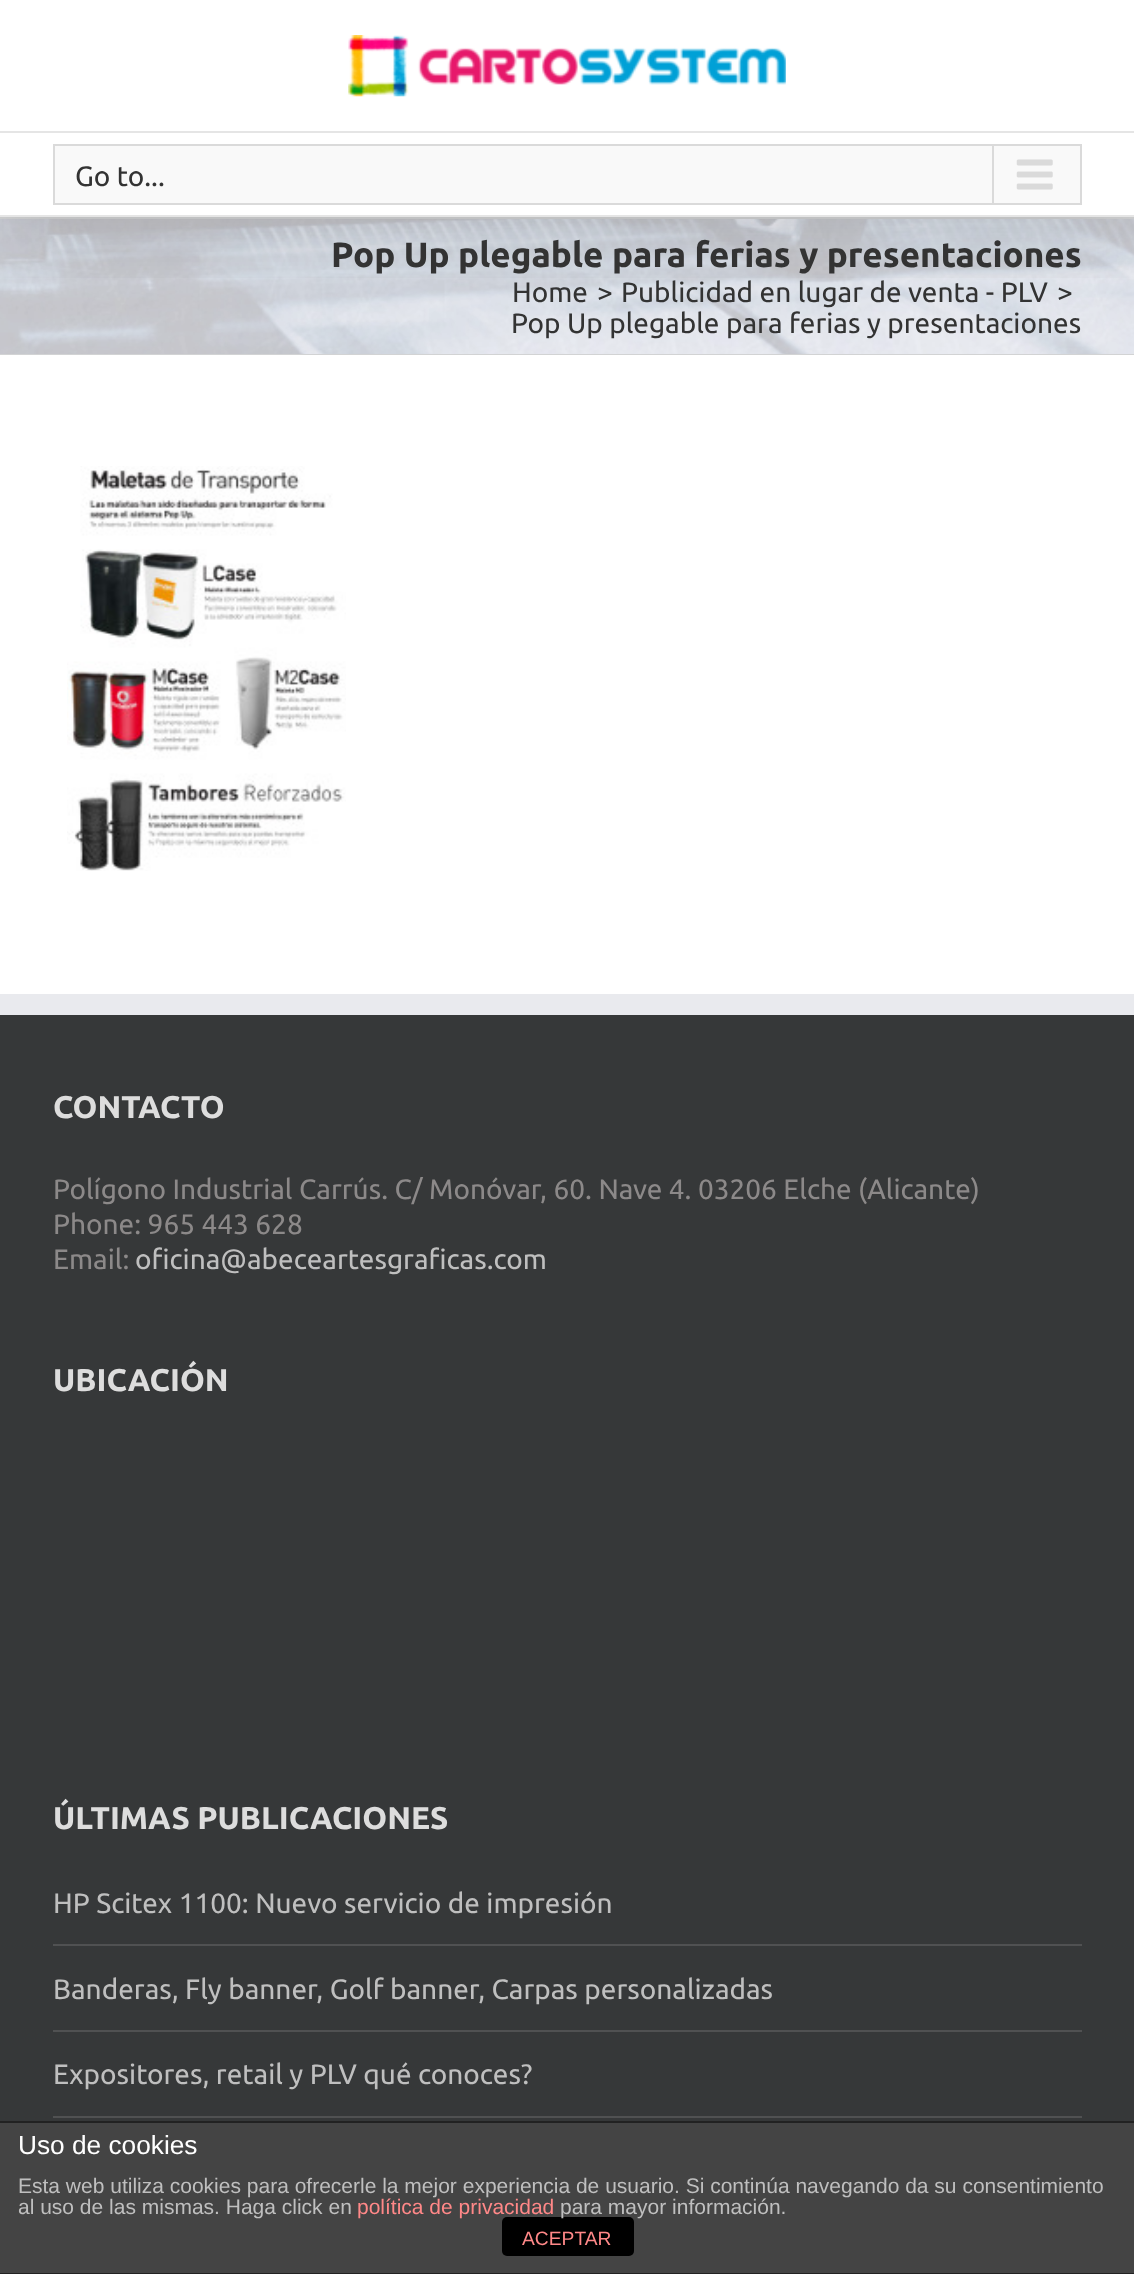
<?xml version="1.0" encoding="UTF-8"?>
<svg xmlns="http://www.w3.org/2000/svg" width="1134" height="2274">
    <defs>
        <clipPath id="clip1"><rect x="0" y="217" width="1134" height="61"/></clipPath>
        <filter id="blur1" x="-50%" y="-200%" width="200%" height="500%"><feGaussianBlur stdDeviation="44"/></filter>
    </defs>
    <rect width="100%" height="100%" fill="#FFFFFF"/>
    <rect x="0" y="219" width="1134" height="135" fill="#F6F6F6"/>
    <image x="0" y="219" width="1134" height="135" href="img_03.png"/>
    <rect x="0" y="217" width="1134" height="2" fill="#D2D3D4"/>
    <rect x="0" y="354" width="1134" height="1" fill="#D2D3D4"/>
    <g clip-path="url(#clip1)">
        <rect x="4" y="21" width="1127" height="210" fill="#000000" fill-opacity="0.14" filter="url(#blur1)"/>
    </g>
    <rect x="0" y="131" width="1134" height="2" fill="#E5E5E5"/>
    <image x="348" y="35" width="438" height="62" href="img_01.png"/>
    <rect x="0" y="215" width="1134" height="2" fill="#E5E5E5"/>
    <rect x="54" y="145" width="1027" height="59" fill="#F9F9F9" stroke="#DADADA" stroke-width="2"/>
    <text x="75" y="186" font-family="Ubuntu" font-size="28" fill="#333333">Go to...</text>
    <rect x="992" y="145" width="2" height="58" fill="#DADADA"/>
    <image x="1016" y="159" width="37" height="31" href="img_02.png"/>
    <text x="331" y="267" font-family="Ubuntu" font-size="35" font-weight="700" fill="#333333">Pop Up plegable para ferias y presentaciones</text>
    <text x="512" y="302" font-family="Ubuntu" font-size="28" fill="#333333">Home</text>
    <text x="597" y="302" font-family="Ubuntu" font-size="28" fill="#333333">&gt;</text>
    <text x="621" y="302" font-family="Ubuntu" font-size="28" fill="#333333">Publicidad en lugar de venta - PLV</text>
    <text x="1057" y="302" font-family="Ubuntu" font-size="28" fill="#333333">&gt;</text>
    <text x="511" y="333" font-family="Ubuntu" font-size="28" fill="#333333">Pop Up plegable para ferias y presentaciones</text>
    <image x="67" y="466" width="279" height="405" href="img_04.png"/>
    <rect x="0" y="1015" width="1134" height="1106" fill="#363839"/>
    <rect x="0" y="994" width="1134" height="21" fill="#E9EAEE"/>
    <text x="53" y="1118" font-family="Ubuntu" font-size="31.5" font-weight="700" fill="#DDDDDD">CONTACTO</text>
    <text font-family="Ubuntu" font-size="28" fill="#8C8989">
        <tspan x="53" y="1199">Polígono Industrial Carrús. C/ Monóvar, 60. Nave 4. 03206 Elche (Alicante)</tspan>
        <tspan x="53" y="1234">Phone: 965 443 628</tspan>
        <tspan x="53" y="1269">Email:</tspan>
    </text>
    <text x="135" y="1269" font-family="Ubuntu" font-size="28" fill="#BFBFBF">oficina@abeceartesgraficas.com</text>
    <text x="53" y="1391" font-family="Ubuntu" font-size="31.5" font-weight="700" fill="#DDDDDD">UBICACIÓN</text>
    <text x="53" y="1829" font-family="Ubuntu" font-size="31.5" font-weight="700" fill="#DDDDDD">ÚLTIMAS PUBLICACIONES</text>
    <rect x="53" y="1944" width="1029" height="2" fill="#505152"/>
    <text x="53" y="1913" font-family="Ubuntu" font-size="28" fill="#BFBFBF">HP Scitex 1100: Nuevo servicio de impresión</text>
    <rect x="53" y="2030" width="1029" height="2" fill="#505152"/>
    <text x="53" y="1999" font-family="Ubuntu" font-size="28" fill="#BFBFBF">Banderas, Fly banner, Golf banner, Carpas personalizadas</text>
    <rect x="53" y="2116" width="1029" height="2" fill="#505152"/>
    <text x="53" y="2084" font-family="Ubuntu" font-size="28" fill="#BFBFBF">Expositores, retail y PLV qué conoces?</text>
    <rect x="0" y="2123" width="1134" height="150" fill="#444444"/>
    <rect x="0" y="2121" width="1134" height="2" fill="#222222"/>
    <rect x="0" y="2273" width="1134" height="1" fill="#222222"/>
    <text x="18" y="2154" font-family="Liberation Sans" font-size="26.25" fill="#FFFFFF">Uso de cookies</text>
    <text font-family="Liberation Sans" font-size="21" fill="#BFBFBF">
        <tspan x="18" y="2193">Esta web utiliza cookies para ofrecerle la mejor experiencia de usuario. Si continúa navegando da su consentimiento</tspan>
        <tspan x="18" y="2214">al uso de las mismas. Haga click en</tspan>
    </text>
    <rect x="502" y="2217" width="132" height="39" rx="5" fill="#000000"/>
    <text x="357" y="2214" font-family="Liberation Sans" font-size="21" fill="#FF8888">política de privacidad</text>
    <text x="560" y="2214" font-family="Liberation Sans" font-size="21" fill="#BFBFBF">para mayor información.</text>
    <text x="522" y="2245" font-family="Liberation Sans" font-size="19.25" fill="#FF8888">ACEPTAR</text>
</svg>
